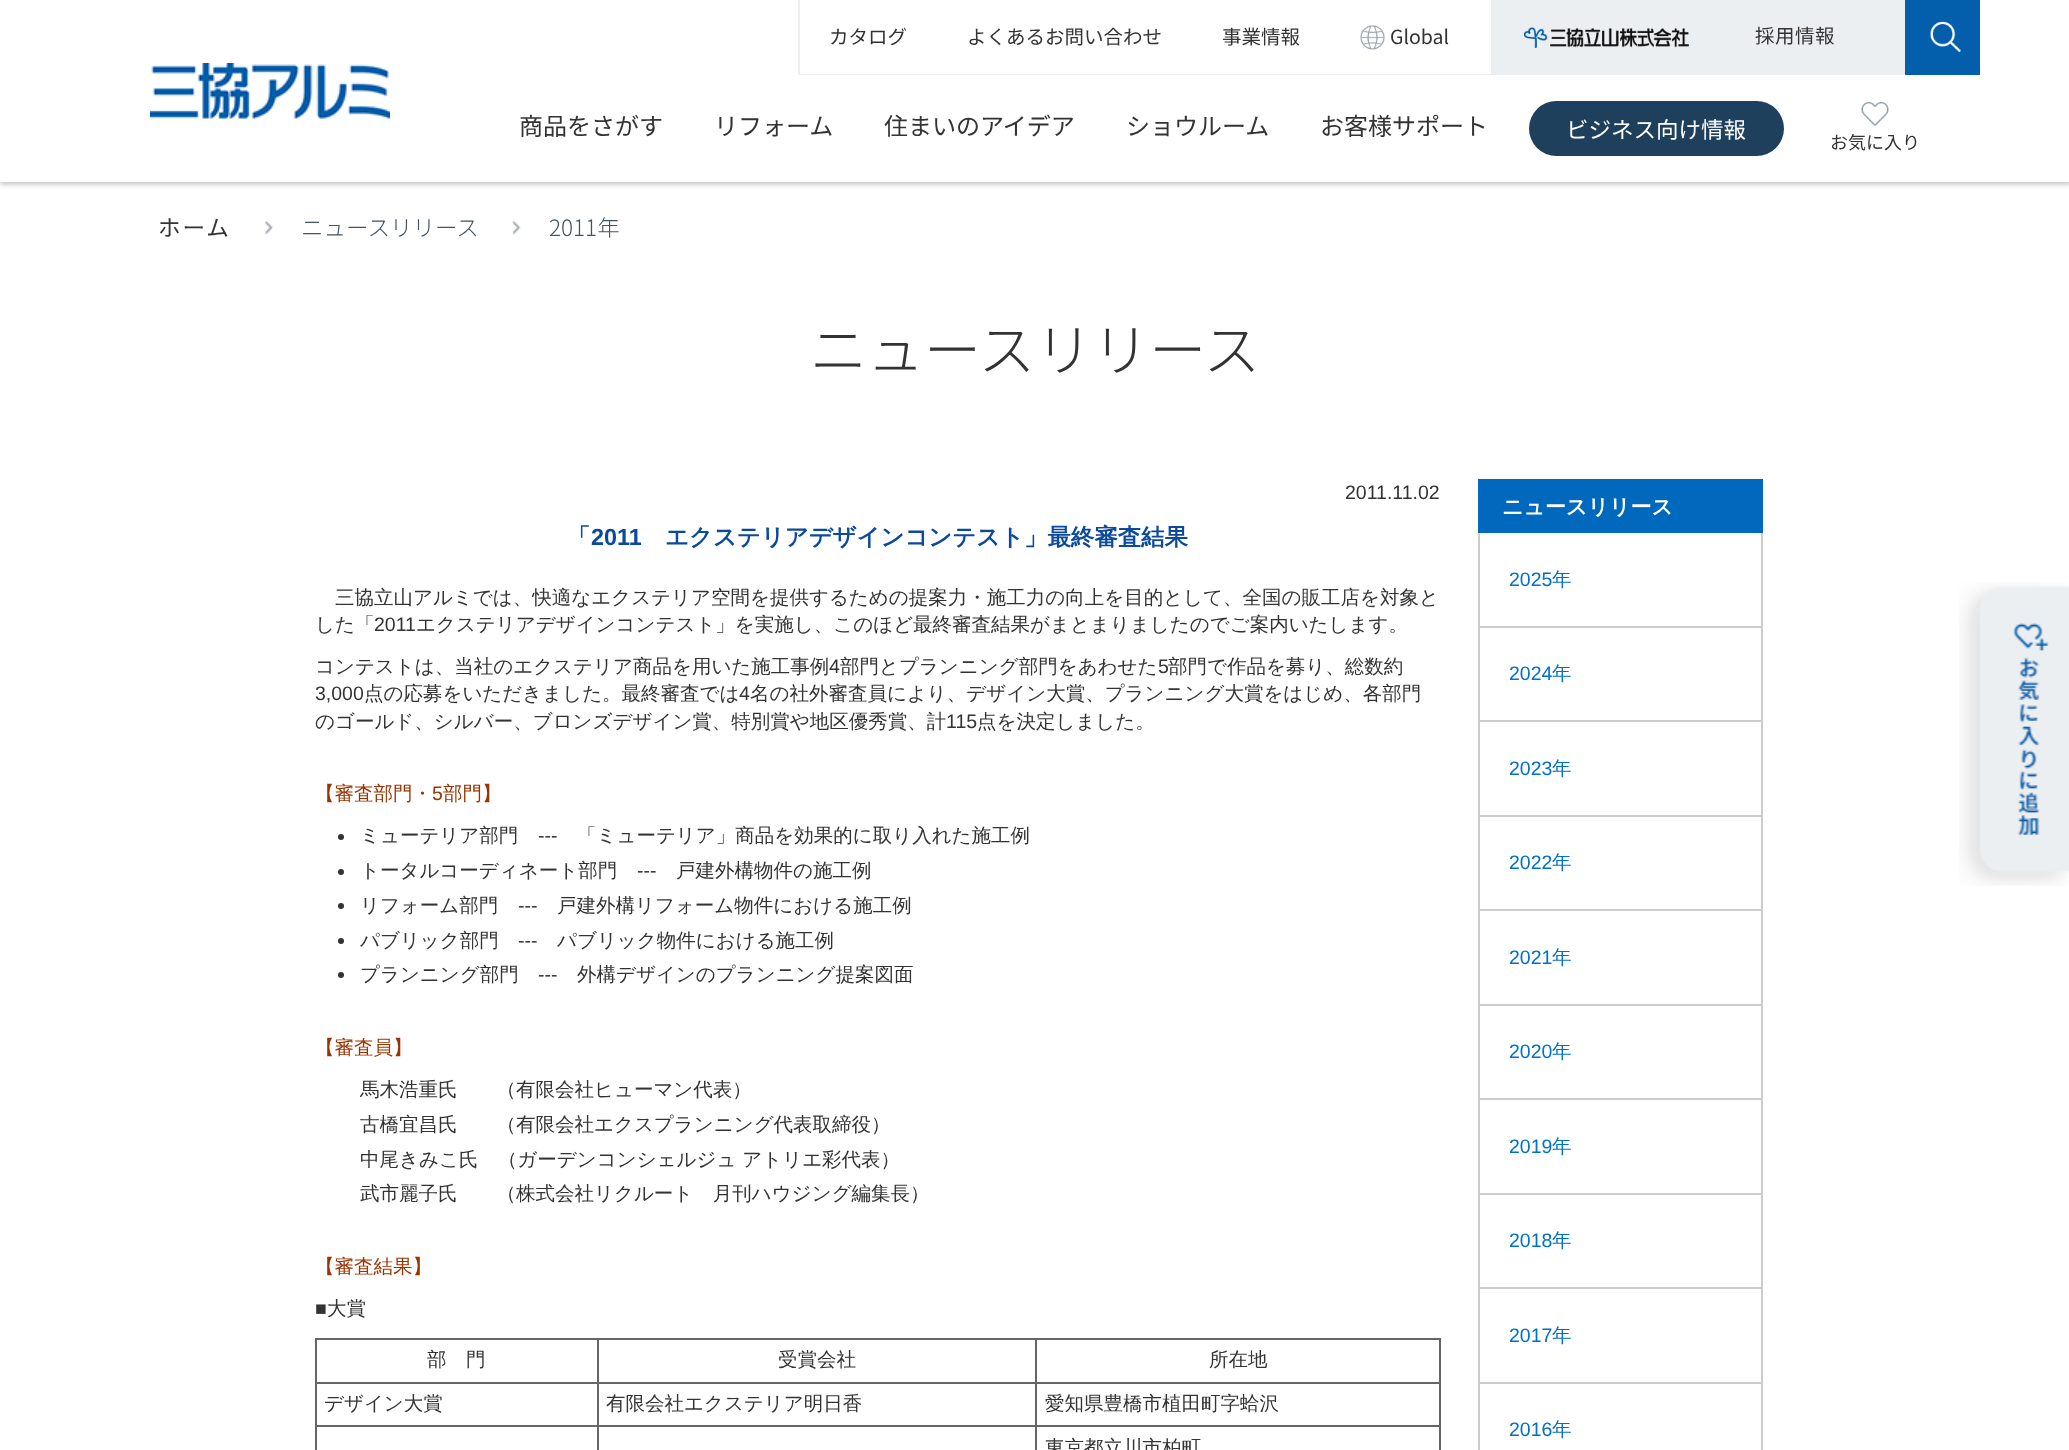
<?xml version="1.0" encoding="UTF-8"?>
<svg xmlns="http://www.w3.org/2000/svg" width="2069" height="1450">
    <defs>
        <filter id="blur1" x="-50%" y="-200%" width="200%" height="500%"><feGaussianBlur stdDeviation="2"/></filter>
    </defs>
    <rect width="100%" height="100%" fill="#FFFFFF"/>
    <rect x="0" y="3" width="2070" height="182" fill="#000000" fill-opacity="0.2" filter="url(#blur1)"/>
    <rect x="0" y="0" width="2069" height="182" fill="#FFFFFF"/>
    <image x="150" y="63" width="240" height="56" href="img_01.png"/>
    <rect x="798" y="74" width="693" height="1" fill="#ECEFF1"/>
    <rect x="798" y="0" width="2" height="75" fill="#ECEFF1"/>
    <text x="829" y="44" font-family="Noto Sans JP" font-size="19.5" fill="#333333">カタログ</text>
    <text x="967" y="44" font-family="Noto Sans JP" font-size="19.5" fill="#333333">よくあるお問い合わせ</text>
    <text x="1222" y="44" font-family="Noto Sans JP" font-size="19.5" fill="#333333">事業情報</text>
    <image x="1360" y="25" width="25" height="25" href="img_02.png"/>
    <text x="1390" y="44" font-family="Noto Sans JP" font-size="19.5" fill="#333333">Global</text>
    <rect x="1491" y="0" width="414" height="75" fill="#ECEFF1"/>
    <image x="1524" y="27" width="165" height="21" href="img_03.png"/>
    <text x="1755" y="43" font-family="Noto Sans JP" font-size="19.5" letter-spacing="0.5" fill="#333333">採用情報</text>
    <image x="1905" y="0" width="75" height="75" href="img_04.png"/>
    <text x="519" y="135" font-family="Noto Sans JP" font-size="24" fill="#333333">商品をさがす</text>
    <text x="714" y="135" font-family="Noto Sans JP" font-size="24" fill="#333333">リフォーム</text>
    <text x="884" y="135" font-family="Noto Sans JP" font-size="24" fill="#333333">住まいのアイデア</text>
    <text x="1126" y="135" font-family="Noto Sans JP" font-size="24" fill="#333333">ショウルーム</text>
    <text x="1320" y="135" font-family="Noto Sans JP" font-size="24" fill="#333333">お客様サポート</text>
    <rect x="1529" y="101" width="255" height="55" rx="27.5" fill="#1E405C"/>
    <text x="1566" y="138" font-family="Noto Sans JP" font-size="22.5" fill="#FFFFFF">ビジネス向け情報</text>
    <image x="1861" y="102" width="28" height="24" href="img_05.png"/>
    <text x="1830" y="149" font-family="Noto Sans JP" font-size="18" fill="#333333">お気に入り</text>
    <image x="1959" y="582" width="110" height="304" href="img_06.png"/>
    <text x="158" y="236" font-family="Noto Sans JP" font-size="22.5" letter-spacing="2" fill="#333333">ホーム</text>
    <image x="264" y="220" width="9" height="14" href="img_07.png"/>
    <text x="301" y="236" font-family="Noto Sans JP" font-size="22.5" font-weight="300" fill="#445362">ニュースリリース</text>
    <image x="512" y="220" width="9" height="14" href="img_08.png"/>
    <text x="549" y="236" font-family="Noto Sans JP" font-size="22.5" font-weight="300" fill="#445362">2011年</text>
    <text x="810" y="371" font-family="Noto Sans JP" font-size="57" font-weight="300" fill="#333333">ニュースリリース</text>
    <text x="1345" y="499" font-family="Liberation Sans" font-size="19.5" fill="#333333">2011.11.02</text>
    <text x="567" y="545" font-family="WenQuanYi Zen Hei" font-size="23.4" font-weight="700" fill="#0B499D">「</text>
    <text x="591" y="545" font-family="Liberation Sans" font-size="23.4" font-weight="700" fill="#0B499D">2011</text>
    <text x="665" y="545" font-family="WenQuanYi Zen Hei" font-size="23.4" font-weight="700" fill="#0B499D">エクステリアデザインコンテスト」最終審査結果</text>
    <text x="335" y="604" font-family="WenQuanYi Zen Hei" font-size="19.5" font-weight="500" fill="#333333">三協立山アルミでは、快適なエクステリア空間を提供するための提案力・施工力の向上を目的として、全国の販工店を対象と</text>
    <text x="315" y="631" font-family="WenQuanYi Zen Hei" font-size="19.5" font-weight="500" fill="#333333">した「</text>
    <text x="374" y="631" font-family="Liberation Sans" font-size="19.5" fill="#333333">2011</text>
    <text x="416" y="631" font-family="WenQuanYi Zen Hei" font-size="19.5" font-weight="500" fill="#333333">エクステリアデザインコンテスト」を実施し、このほど最終審査結果がまとまりましたのでご案内いたします。</text>
    <text x="315" y="673" font-family="WenQuanYi Zen Hei" font-size="19.5" font-weight="500" fill="#333333">コンテストは、当社のエクステリア商品を用いた施工事例</text>
    <text x="829" y="673" font-family="Liberation Sans" font-size="19.5" fill="#333333">4</text>
    <text x="840" y="673" font-family="WenQuanYi Zen Hei" font-size="19.5" font-weight="500" fill="#333333">部門とプランニング部門をあわせた</text>
    <text x="1158" y="673" font-family="Liberation Sans" font-size="19.5" fill="#333333">5</text>
    <text x="1168" y="673" font-family="WenQuanYi Zen Hei" font-size="19.5" font-weight="500" fill="#333333">部門で作品を募り、総数約</text>
    <text x="315" y="700" font-family="Liberation Sans" font-size="19.5" fill="#333333">3,000</text>
    <text x="364" y="700" font-family="WenQuanYi Zen Hei" font-size="19.5" font-weight="500" fill="#333333">点の応募をいただきました。最終審査では</text>
    <text x="739" y="700" font-family="Liberation Sans" font-size="19.5" fill="#333333">4</text>
    <text x="750" y="700" font-family="WenQuanYi Zen Hei" font-size="19.5" font-weight="500" fill="#333333">名の社外審査員により、デザイン大賞、プランニング大賞をはじめ、各部門</text>
    <text x="315" y="728" font-family="WenQuanYi Zen Hei" font-size="19.5" font-weight="500" fill="#333333">のゴールド、シルバー、ブロンズデザイン賞、特別賞や地区優秀賞、計</text>
    <text x="946" y="728" font-family="Liberation Sans" font-size="19.5" fill="#333333">115</text>
    <text x="977" y="728" font-family="WenQuanYi Zen Hei" font-size="19.5" font-weight="500" fill="#333333">点を決定しました。</text>
    <text x="315" y="800" font-family="WenQuanYi Zen Hei" font-size="19.5" font-weight="500" fill="#9A3300">【審査部門・</text>
    <text x="432" y="800" font-family="Liberation Sans" font-size="19.5" fill="#9A3300">5</text>
    <text x="443" y="800" font-family="WenQuanYi Zen Hei" font-size="19.5" font-weight="500" fill="#9A3300">部門】</text>
    <circle cx="341" cy="837" r="3" fill="#333333"/>
    <text x="360" y="842" font-family="WenQuanYi Zen Hei" font-size="19.5" font-weight="500" fill="#333333">ミューテリア部門</text>
    <text x="538" y="842" font-family="Liberation Sans" font-size="19.5" fill="#333333">---</text>
    <text x="577" y="842" font-family="WenQuanYi Zen Hei" font-size="19.5" font-weight="500" fill="#333333">「ミューテリア」商品を効果的に取り入れた施工例</text>
    <circle cx="341" cy="872" r="3" fill="#333333"/>
    <text x="360" y="877" font-family="WenQuanYi Zen Hei" font-size="19.5" font-weight="500" fill="#333333">トータルコーディネート部門</text>
    <text x="637" y="877" font-family="Liberation Sans" font-size="19.5" fill="#333333">---</text>
    <text x="676" y="877" font-family="WenQuanYi Zen Hei" font-size="19.5" font-weight="500" fill="#333333">戸建外構物件の施工例</text>
    <circle cx="341" cy="906" r="3" fill="#333333"/>
    <text x="360" y="912" font-family="WenQuanYi Zen Hei" font-size="19.5" font-weight="500" fill="#333333">リフォーム部門</text>
    <text x="518" y="912" font-family="Liberation Sans" font-size="19.5" fill="#333333">---</text>
    <text x="557" y="912" font-family="WenQuanYi Zen Hei" font-size="19.5" font-weight="500" fill="#333333">戸建外構リフォーム物件における施工例</text>
    <circle cx="341" cy="941" r="3" fill="#333333"/>
    <text x="360" y="947" font-family="WenQuanYi Zen Hei" font-size="19.5" font-weight="500" fill="#333333">パブリック部門</text>
    <text x="518" y="947" font-family="Liberation Sans" font-size="19.5" fill="#333333">---</text>
    <text x="557" y="947" font-family="WenQuanYi Zen Hei" font-size="19.5" font-weight="500" fill="#333333">パブリック物件における施工例</text>
    <circle cx="341" cy="975" r="3" fill="#333333"/>
    <text x="360" y="981" font-family="WenQuanYi Zen Hei" font-size="19.5" font-weight="500" fill="#333333">プランニング部門</text>
    <text x="538" y="981" font-family="Liberation Sans" font-size="19.5" fill="#333333">---</text>
    <text x="577" y="981" font-family="WenQuanYi Zen Hei" font-size="19.5" font-weight="500" fill="#333333">外構デザインのプランニング提案図面</text>
    <text x="315" y="1054" font-family="WenQuanYi Zen Hei" font-size="19.5" font-weight="500" fill="#9A3300">【審査員】</text>
    <text font-family="WenQuanYi Zen Hei" font-size="19.5" font-weight="500" fill="#333333">
        <tspan x="360" y="1096">馬木浩重氏　　（有限会社ヒューマン代表）</tspan>
        <tspan x="360" y="1131">古橋宜昌氏　　（有限会社エクスプランニング代表取締役）</tspan>
        <tspan x="360" y="1166">中尾きみこ氏　（ガーデンコンシェルジュ アトリエ彩代表）</tspan>
        <tspan x="360" y="1200">武市麗子氏　　（株式会社リクルート　月刊ハウジング編集長）</tspan>
    </text>
    <text x="315" y="1273" font-family="WenQuanYi Zen Hei" font-size="19.5" font-weight="500" fill="#9A3300">【審査結果】</text>
    <text x="315" y="1315" font-family="Liberation Sans" font-size="19.5" fill="#333333">■</text>
    <text x="327" y="1315" font-family="WenQuanYi Zen Hei" font-size="19.5" font-weight="500" fill="#333333">大賞</text>
    <rect x="315" y="1338" width="1125" height="2" fill="#666666"/>
    <rect x="1439" y="1338" width="2" height="112" fill="#666666"/>
    <rect x="315" y="1338" width="2" height="112" fill="#666666"/>
    <text x="427" y="1366" font-family="WenQuanYi Zen Hei" font-size="19.5" font-weight="500" fill="#333333">部　門</text>
    <rect x="1035" y="1382" width="405" height="2" fill="#666666"/>
    <rect x="1035" y="1425" width="405" height="2" fill="#666666"/>
    <rect x="1035" y="1425" width="2" height="25" fill="#666666"/>
    <rect x="597" y="1425" width="440" height="2" fill="#666666"/>
    <rect x="1035" y="1382" width="2" height="45" fill="#666666"/>
    <rect x="597" y="1382" width="440" height="2" fill="#666666"/>
    <rect x="597" y="1425" width="2" height="25" fill="#666666"/>
    <rect x="315" y="1425" width="284" height="2" fill="#666666"/>
    <rect x="597" y="1382" width="2" height="45" fill="#666666"/>
    <rect x="315" y="1382" width="284" height="2" fill="#666666"/>
    <rect x="597" y="1338" width="2" height="45" fill="#666666"/>
    <text x="778" y="1366" font-family="WenQuanYi Zen Hei" font-size="19.5" font-weight="500" fill="#333333">受賞会社</text>
    <rect x="1035" y="1338" width="2" height="45" fill="#666666"/>
    <text x="1209" y="1366" font-family="WenQuanYi Zen Hei" font-size="19.5" font-weight="500" fill="#333333">所在地</text>
    <text x="324" y="1410" font-family="WenQuanYi Zen Hei" font-size="19.5" font-weight="500" fill="#333333">デザイン大賞</text>
    <text x="606" y="1410" font-family="WenQuanYi Zen Hei" font-size="19.5" font-weight="500" fill="#333333">有限会社エクステリア明日香</text>
    <text x="1045" y="1410" font-family="WenQuanYi Zen Hei" font-size="19.5" font-weight="500" fill="#333333">愛知県豊橋市植田町字蛤沢</text>
    <text x="1045" y="1454" font-family="WenQuanYi Zen Hei" font-size="19.5" font-weight="500" fill="#333333">東京都立川市柏町</text>
    <rect x="1478" y="479" width="285" height="54" fill="#0068BD"/>
    <text x="1502" y="514" font-family="WenQuanYi Zen Hei" font-size="21" font-weight="700" fill="#FFFFFF">ニュースリリース</text>
    <rect x="1761" y="533" width="2" height="94" fill="#CCCCCC"/>
    <rect x="1478" y="626" width="285" height="2" fill="#CCCCCC"/>
    <rect x="1478" y="533" width="2" height="94" fill="#CCCCCC"/>
    <text x="1509" y="586" font-family="Liberation Sans" font-size="19.5" fill="#0070CB">2025</text>
    <text x="1552" y="586" font-family="WenQuanYi Zen Hei" font-size="19.5" font-weight="500" fill="#0070CB">年</text>
    <rect x="1761" y="627" width="2" height="189" fill="#CCCCCC"/>
    <rect x="1478" y="720" width="285" height="2" fill="#CCCCCC"/>
    <rect x="1478" y="627" width="2" height="95" fill="#CCCCCC"/>
    <text x="1509" y="680" font-family="Liberation Sans" font-size="19.5" fill="#0070CB">2024</text>
    <text x="1552" y="680" font-family="WenQuanYi Zen Hei" font-size="19.5" font-weight="500" fill="#0070CB">年</text>
    <rect x="1478" y="815" width="285" height="2" fill="#CCCCCC"/>
    <rect x="1478" y="722" width="2" height="94" fill="#CCCCCC"/>
    <text x="1509" y="775" font-family="Liberation Sans" font-size="19.5" fill="#0070CB">2023</text>
    <text x="1552" y="775" font-family="WenQuanYi Zen Hei" font-size="19.5" font-weight="500" fill="#0070CB">年</text>
    <rect x="1761" y="816" width="2" height="189" fill="#CCCCCC"/>
    <rect x="1478" y="909" width="285" height="2" fill="#CCCCCC"/>
    <rect x="1478" y="816" width="2" height="95" fill="#CCCCCC"/>
    <text x="1509" y="869" font-family="Liberation Sans" font-size="19.5" fill="#0070CB">2022</text>
    <text x="1552" y="869" font-family="WenQuanYi Zen Hei" font-size="19.5" font-weight="500" fill="#0070CB">年</text>
    <rect x="1478" y="1004" width="285" height="2" fill="#CCCCCC"/>
    <rect x="1478" y="911" width="2" height="94" fill="#CCCCCC"/>
    <text x="1509" y="964" font-family="Liberation Sans" font-size="19.5" fill="#0070CB">2021</text>
    <text x="1552" y="964" font-family="WenQuanYi Zen Hei" font-size="19.5" font-weight="500" fill="#0070CB">年</text>
    <rect x="1761" y="1005" width="2" height="189" fill="#CCCCCC"/>
    <rect x="1478" y="1098" width="285" height="2" fill="#CCCCCC"/>
    <rect x="1478" y="1005" width="2" height="95" fill="#CCCCCC"/>
    <text x="1509" y="1058" font-family="Liberation Sans" font-size="19.5" fill="#0070CB">2020</text>
    <text x="1552" y="1058" font-family="WenQuanYi Zen Hei" font-size="19.5" font-weight="500" fill="#0070CB">年</text>
    <rect x="1478" y="1193" width="285" height="2" fill="#CCCCCC"/>
    <rect x="1478" y="1100" width="2" height="94" fill="#CCCCCC"/>
    <text x="1509" y="1153" font-family="Liberation Sans" font-size="19.5" fill="#0070CB">2019</text>
    <text x="1552" y="1153" font-family="WenQuanYi Zen Hei" font-size="19.5" font-weight="500" fill="#0070CB">年</text>
    <rect x="1761" y="1194" width="2" height="189" fill="#CCCCCC"/>
    <rect x="1478" y="1287" width="285" height="2" fill="#CCCCCC"/>
    <rect x="1478" y="1194" width="2" height="95" fill="#CCCCCC"/>
    <text x="1509" y="1247" font-family="Liberation Sans" font-size="19.5" fill="#0070CB">2018</text>
    <text x="1552" y="1247" font-family="WenQuanYi Zen Hei" font-size="19.5" font-weight="500" fill="#0070CB">年</text>
    <rect x="1478" y="1382" width="285" height="2" fill="#CCCCCC"/>
    <rect x="1478" y="1289" width="2" height="161" fill="#CCCCCC"/>
    <text x="1509" y="1342" font-family="Liberation Sans" font-size="19.5" fill="#0070CB">2017</text>
    <text x="1552" y="1342" font-family="WenQuanYi Zen Hei" font-size="19.5" font-weight="500" fill="#0070CB">年</text>
    <rect x="1761" y="1383" width="2" height="67" fill="#CCCCCC"/>
    <text x="1509" y="1436" font-family="Liberation Sans" font-size="19.5" fill="#0070CB">2016</text>
    <text x="1552" y="1436" font-family="WenQuanYi Zen Hei" font-size="19.5" font-weight="500" fill="#0070CB">年</text>
</svg>
